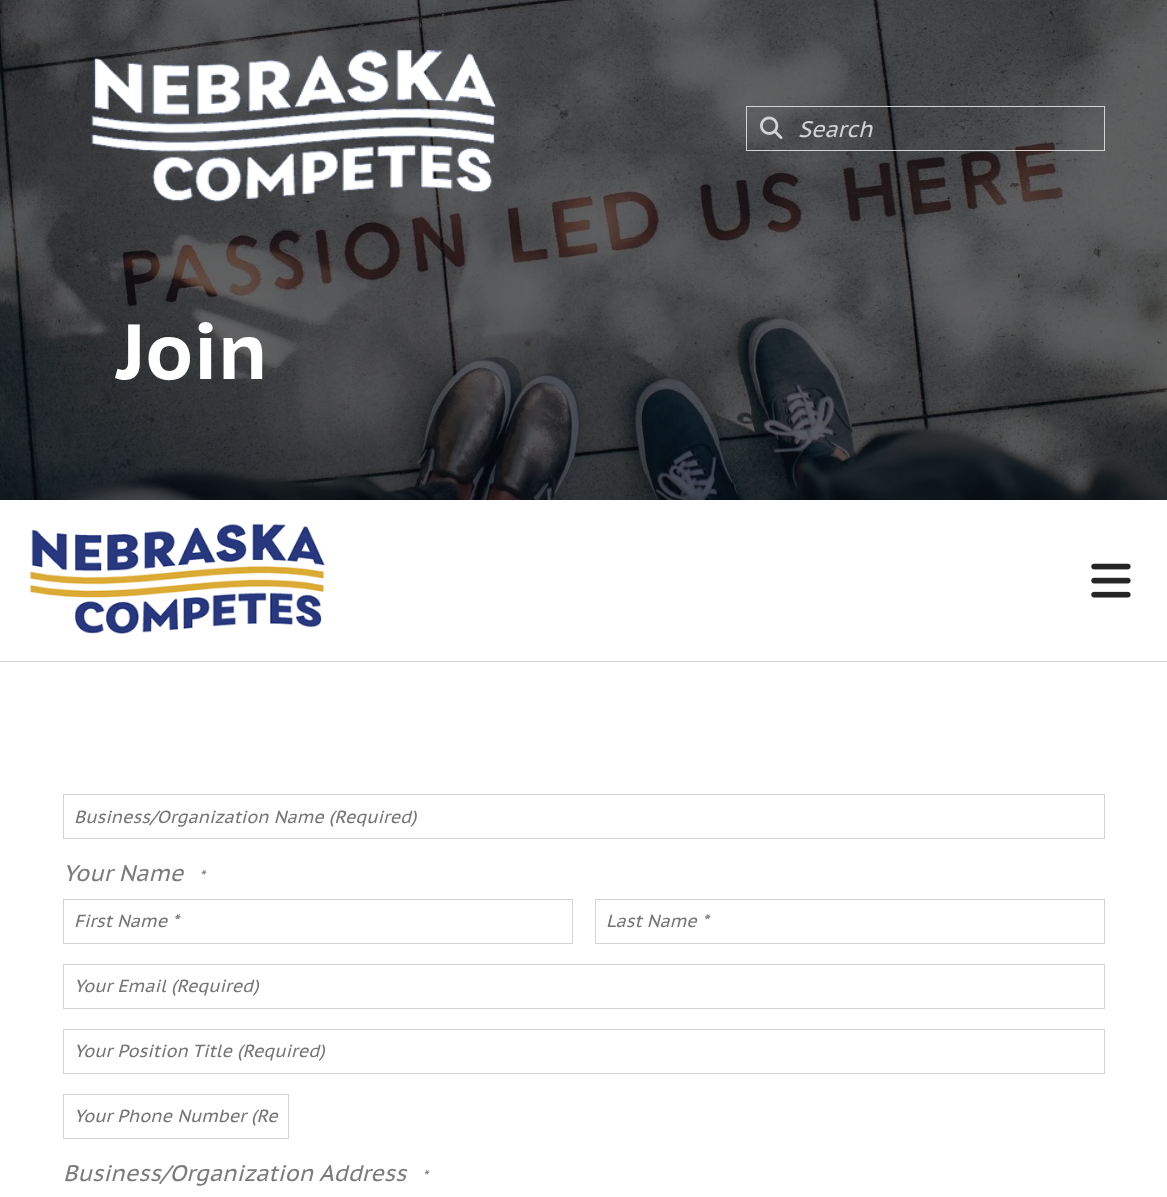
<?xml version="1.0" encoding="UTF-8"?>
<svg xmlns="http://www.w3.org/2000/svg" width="1167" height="1197">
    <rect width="100%" height="100%" fill="#FFFFFF"/>
    <image x="0" y="0" width="1167" height="500" href="img_01.png"/>
    <image x="91" y="49" width="407" height="153" href="img_02.png"/>
    <rect x="746.5" y="106.5" width="358" height="44" fill="none" stroke="#D3D3D3"/>
    <image x="760" y="116" width="23" height="23" href="img_03.png"/>
    <text x="798" y="137" font-family="PT Sans Caption" font-size="22.5" font-style="italic" fill="#D3D3D3">Search</text>
    <text x="117" y="379" font-family="PT Sans Caption" font-size="78" font-weight="700" fill="#FFFFFF">Join</text>
    <rect x="0" y="661" width="1167" height="1" fill="#D3D3D3"/>
    <image x="30" y="523" width="295" height="111" href="img_04.png"/>
    <image x="1091" y="563" width="40" height="35" href="img_05.png"/>
    <rect x="63.5" y="794.5" width="1041" height="44" fill="none" stroke="#D3D3D3"/>
    <text x="74" y="823" font-family="PT Sans Caption" font-size="17.5" font-style="italic" fill="#757575">Business/Organization Name (Required)</text>
    <text x="63" y="881" font-family="PT Sans Caption" font-size="22.5" font-style="italic" fill="#7B7B7B">Your Name</text>
    <text x="199" y="881" font-family="PT Sans Caption" font-size="15" font-style="italic" fill="#757575">*</text>
    <rect x="63.5" y="899.5" width="509" height="44" fill="none" stroke="#D3D3D3"/>
    <text x="74" y="927" font-family="PT Sans Caption" font-size="17.5" font-style="italic" fill="#757575">First Name *</text>
    <rect x="595.5" y="899.5" width="509" height="44" fill="none" stroke="#D3D3D3"/>
    <text x="606" y="927" font-family="PT Sans Caption" font-size="17.5" font-style="italic" fill="#757575">Last Name *</text>
    <rect x="63.5" y="964.5" width="1041" height="44" fill="none" stroke="#D3D3D3"/>
    <text x="74" y="992" font-family="PT Sans Caption" font-size="17.5" font-style="italic" fill="#757575">Your Email (Required)</text>
    <rect x="63.5" y="1029.5" width="1041" height="44" fill="none" stroke="#D3D3D3"/>
    <text x="74" y="1057" font-family="PT Sans Caption" font-size="17.5" font-style="italic" fill="#757575">Your Position Title (Required)</text>
    <rect x="63.5" y="1094.5" width="225" height="44" fill="none" stroke="#D3D3D3"/>
    <text x="74" y="1122" font-family="PT Sans Caption" font-size="17.5" font-style="italic" fill="#757575">Your Phone Number (Re</text>
    <text x="63" y="1181" font-family="PT Sans Caption" font-size="22.5" font-style="italic" fill="#7B7B7B">Business/Organization Address</text>
    <text x="422" y="1181" font-family="PT Sans Caption" font-size="15" font-style="italic" fill="#757575">*</text>
</svg>
